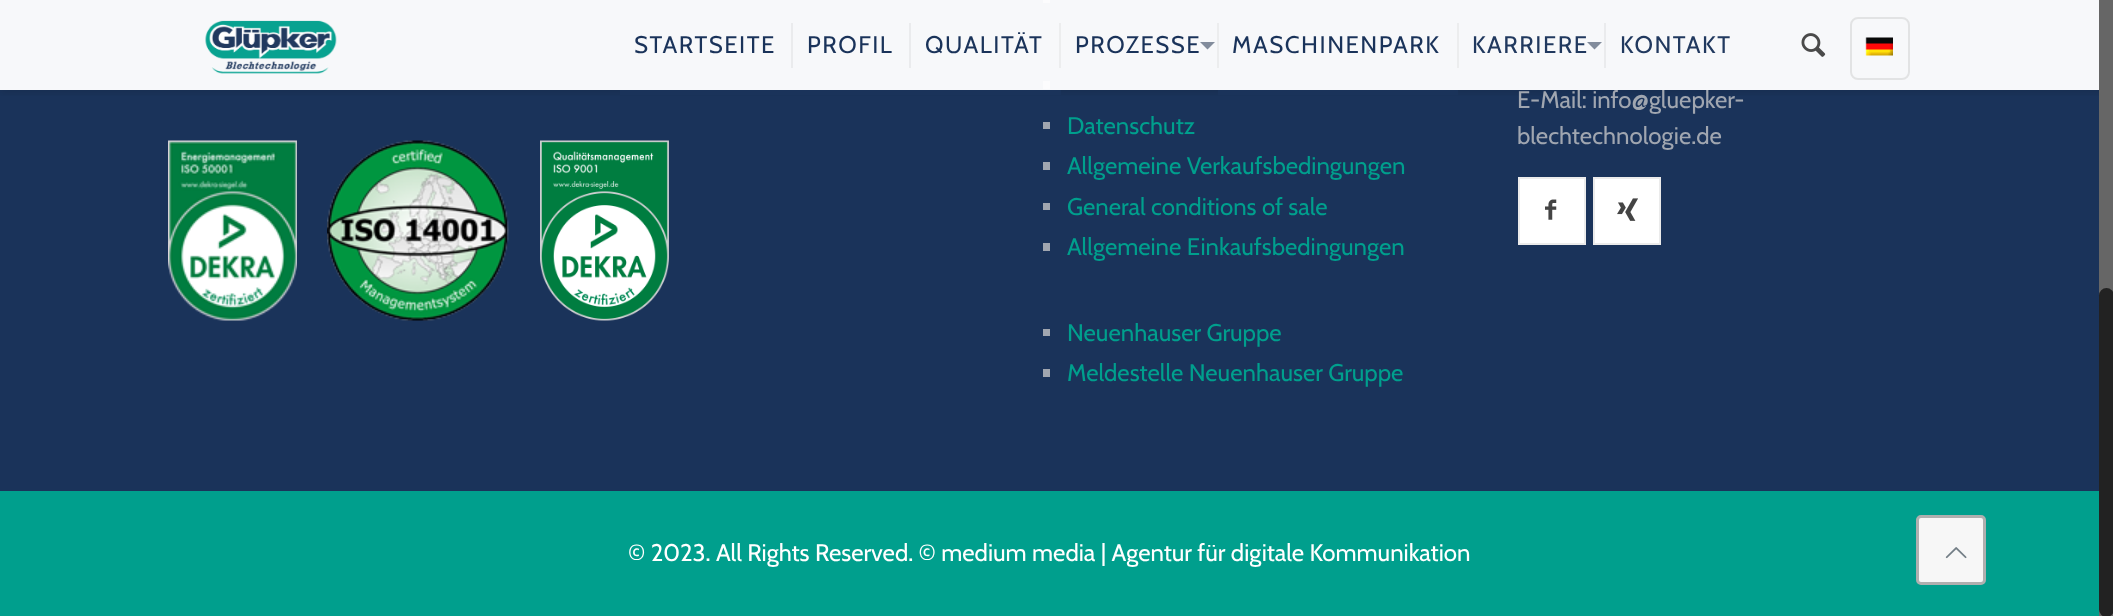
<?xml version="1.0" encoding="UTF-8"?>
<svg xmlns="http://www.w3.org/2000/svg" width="2113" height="616">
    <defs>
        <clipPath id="clip1"><rect x="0" y="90" width="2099" height="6"/></clipPath>
        <filter id="blur1" x="-50%" y="-200%" width="200%" height="500%"><feGaussianBlur stdDeviation="4"/></filter>
    </defs>
    <rect width="100%" height="100%" fill="#1A335A"/>
    <rect x="1043" y="0" width="7" height="3" fill="#A0A6B0"/>
    <rect x="1043" y="81" width="7" height="8" fill="#A0A6B0"/>
    <g clip-path="url(#clip1)">
        <rect x="0" y="3" width="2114" height="90" fill="#000000" fill-opacity="0.1" filter="url(#blur1)"/>
    </g>
    <rect x="0" y="0" width="2099" height="90" fill="#FFFFFF" fill-opacity="0.97"/>
    <image x="205" y="20" width="132" height="54" href="img_01.png"/>
    <rect x="791" y="23" width="2" height="45" fill="#000000" fill-opacity="0.05"/>
    <text x="634" y="53" font-family="Cabin" font-size="24" letter-spacing="1.5" fill="#1A335A">STARTSEITE</text>
    <rect x="620" y="90" width="441" height="5" fill="#1A335A"/>
    <rect x="909" y="23" width="2" height="45" fill="#000000" fill-opacity="0.05"/>
    <text x="807" y="53" font-family="Cabin" font-size="24" letter-spacing="1.5" fill="#1A335A">PROFIL</text>
    <rect x="1059" y="23" width="2" height="45" fill="#ECEDEE"/>
    <text x="925" y="53" font-family="Cabin" font-size="24" letter-spacing="1.5" fill="#1A335A">QUALITÄT</text>
    <rect x="1217" y="23" width="2" height="45" fill="#ECEDEE"/>
    <text x="1075" y="53" font-family="Cabin" font-size="24" letter-spacing="1.5" fill="#1A335A">PROZESSE</text>
    <path d="M 1200 42 H 1215 L 1207.5 49.5 Z" fill="#828C9C"/>
    <rect x="1457" y="23" width="2" height="45" fill="#ECEDEE"/>
    <text x="1232" y="53" font-family="Cabin" font-size="24" letter-spacing="1.5" fill="#1A335A">MASCHINENPARK</text>
    <rect x="1218" y="90" width="240" height="5" fill="#1A335A"/>
    <rect x="1604" y="23" width="2" height="45" fill="#000000" fill-opacity="0.05"/>
    <text x="1472" y="53" font-family="Cabin" font-size="24" letter-spacing="1.5" fill="#21395F">KARRIERE</text>
    <path d="M 1587 42 H 1602 L 1594.5 49.5 Z" fill="#828C9C"/>
    <text x="1620" y="53" font-family="Cabin" font-size="24" letter-spacing="1.5" fill="#21395F">KONTAKT</text>
    <image x="1801" y="33" width="25" height="24" href="img_02.png"/>
    <rect x="1851" y="18" width="58" height="61" rx="7" fill="none" stroke="#E2E3E4" stroke-width="2"/>
    <image x="1865" y="37" width="28" height="19" href="img_03.png"/>
    <image x="168" y="140" width="129" height="181" href="img_04.png"/>
    <image x="327" y="140" width="182" height="181" href="img_05.png"/>
    <image x="540" y="140" width="129" height="181" href="img_06.png"/>
    <rect x="1043" y="122" width="7" height="7" fill="#A0A6B0"/>
    <text x="1067" y="134" font-family="Cabin" font-size="24" fill="#009F8D">Datenschutz</text>
    <rect x="1043" y="162" width="7" height="8" fill="#A0A6B0"/>
    <text x="1067" y="174" font-family="Cabin" font-size="24" fill="#009F8D">Allgemeine Verkaufsbedingungen</text>
    <rect x="1043" y="203" width="7" height="7" fill="#A0A6B0"/>
    <text x="1067" y="215" font-family="Cabin" font-size="24" fill="#009F8D">General conditions of sale</text>
    <rect x="1043" y="243" width="7" height="8" fill="#A0A6B0"/>
    <text x="1067" y="255" font-family="Cabin" font-size="24" fill="#009F8D">Allgemeine Einkaufsbedingungen</text>
    <rect x="1043" y="329" width="7" height="7" fill="#A0A6B0"/>
    <text x="1067" y="341" font-family="Cabin" font-size="24" fill="#009F8D">Neuenhauser Gruppe</text>
    <rect x="1043" y="369" width="7" height="8" fill="#A0A6B0"/>
    <text x="1067" y="381" font-family="Cabin" font-size="24" fill="#009F8D">Meldestelle Neuenhauser Gruppe</text>
    <text font-family="Cabin" font-size="24" fill="#A0A6B0">
        <tspan x="1517" y="108">E-Mail: info@gluepker-</tspan>
        <tspan x="1517" y="144">blechtechnologie.de</tspan>
    </text>
    <rect x="1518" y="177" width="68" height="68" fill="#FFFFFF"/>
    <rect x="1519" y="178" width="66" height="66" fill="none" stroke="#000000" stroke-opacity="0.08" stroke-width="2"/>
    <image x="1545" y="199" width="12" height="21" href="img_07.png"/>
    <rect x="1593" y="177" width="68" height="68" fill="#FFFFFF"/>
    <rect x="1594" y="178" width="66" height="66" fill="none" stroke="#000000" stroke-opacity="0.08" stroke-width="2"/>
    <image x="1617" y="198" width="21" height="23" href="img_08.png"/>
    <rect x="0" y="491" width="2099" height="125" fill="#009F8D"/>
    <text x="628" y="561" font-family="Cabin" font-size="24" fill="#FFFFFF">© 2023. All Rights Reserved. © medium media | Agentur für digitale Kommunikation</text>
    <rect x="1917.5" y="516.5" width="67" height="67" rx="3.5" fill="#F7F7F7" stroke="#AFAFAF" stroke-width="3"/>
    <image x="1945" y="547" width="22" height="12" href="img_09.png"/>
    <rect x="2099" y="0" width="14" height="616" fill="#666666"/>
    <rect x="2099" y="288" width="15" height="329" rx="7.5" fill="#222222"/>
</svg>
